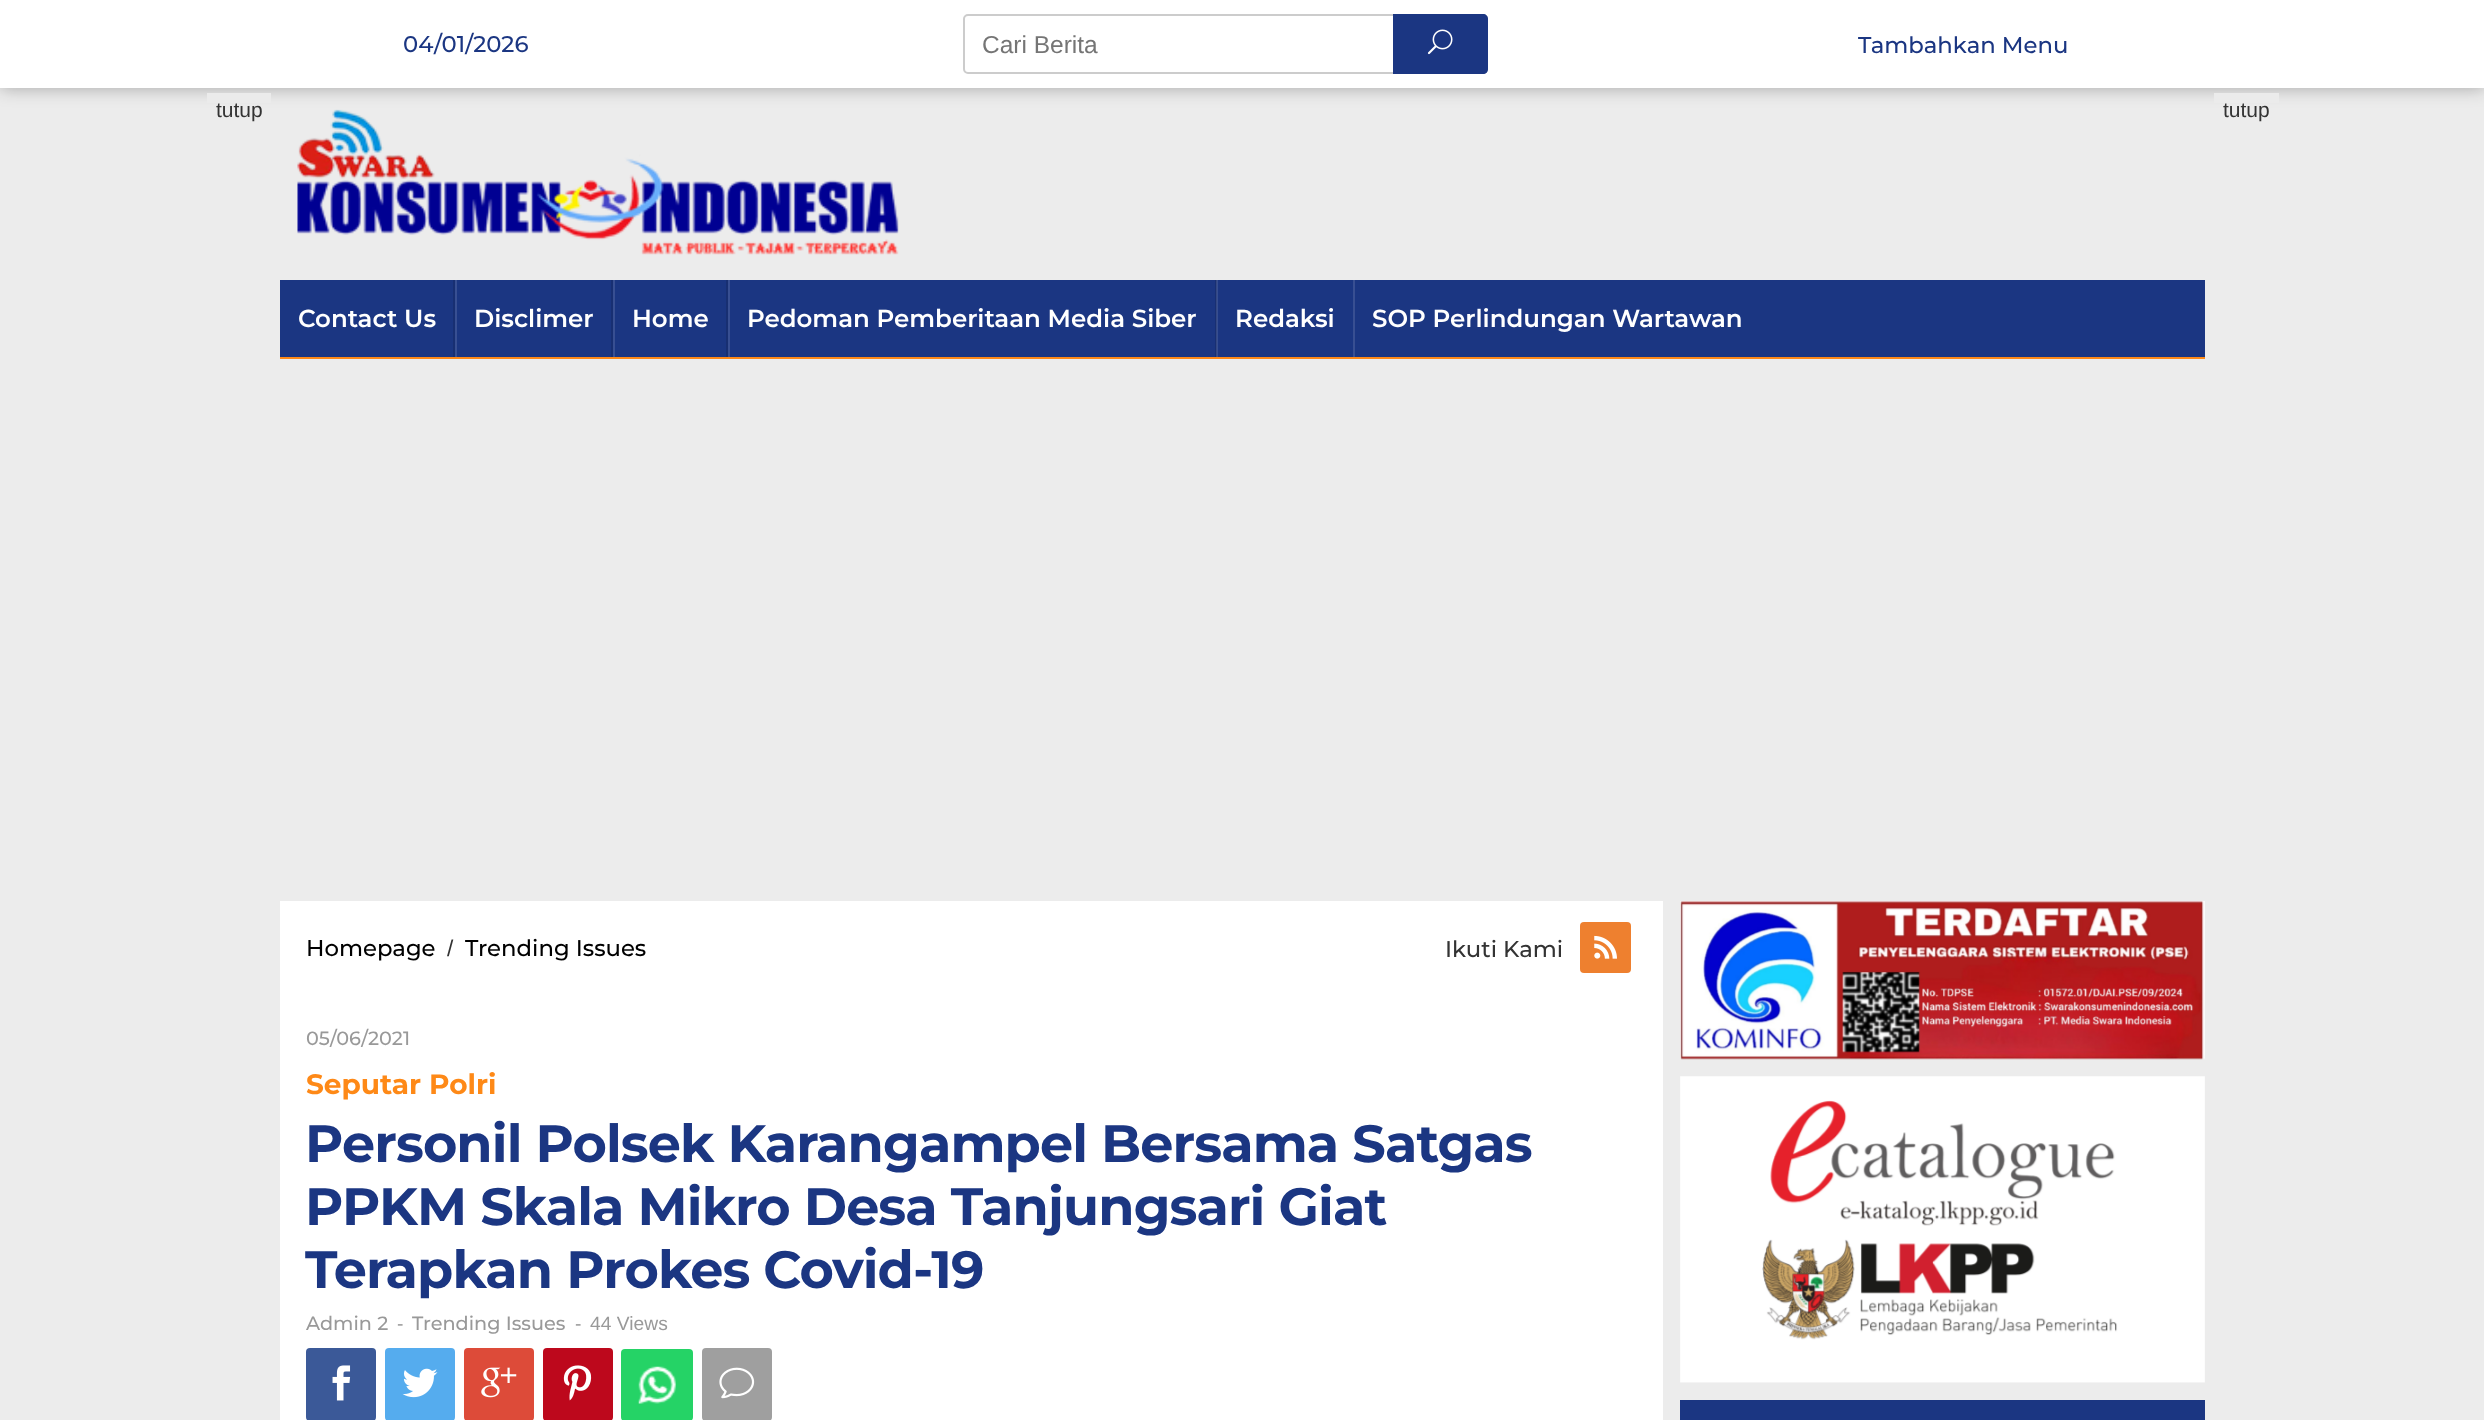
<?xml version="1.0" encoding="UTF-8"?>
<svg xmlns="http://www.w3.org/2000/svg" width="2484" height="1420">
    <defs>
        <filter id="blur1" x="-50%" y="-200%" width="200%" height="500%"><feGaussianBlur stdDeviation="9"/></filter>
    </defs>
    <rect width="100%" height="100%" fill="#ECECEC"/>
    <rect x="0" y="0" width="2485" height="88" fill="#000000" fill-opacity="0.3" filter="url(#blur1)"/>
    <rect x="0" y="0" width="2484" height="88" fill="#FFFFFF"/>
    <text x="403" y="52" font-family="Montserrat" font-size="22.75" font-weight="500" fill="#1B3682">04/01/2026</text>
    <rect x="964" y="15" width="523" height="58" rx="4" fill="none" stroke="#CCCCCC" stroke-width="2"/>
    <text x="982" y="53" font-family="Liberation Sans" font-size="24.5" fill="#757575">Cari Berita</text>
    <path d="M 1393 14 H 1483 C 1486 14 1488 16 1488 19 V 69 C 1488 72 1486 74 1483 74 H 1393 Z" fill="#1B3682"/>
    <image x="1427" y="29" width="26" height="26" href="img_01.png"/>
    <text x="1858" y="53" font-family="Montserrat" font-size="22.75" font-weight="500" fill="#1B3682">Tambahkan Menu</text>
    <rect x="207" y="93" width="64" height="10" fill="#EBEBEB"/>
    <text x="216" y="117" font-family="Liberation Sans" font-size="21" fill="#333333">tutup</text>
    <rect x="2214" y="93" width="65" height="10" fill="#EBEBEB"/>
    <text x="2223" y="117" font-family="Liberation Sans" font-size="21" fill="#333333">tutup</text>
    <rect x="280" y="901" width="1383" height="519" fill="#FFFFFF"/>
    <text x="306" y="956" font-family="Montserrat" font-size="22.75" font-weight="500" fill="#000000">Homepage</text>
    <text x="447" y="956" font-family="Liberation Sans" font-size="22.75" fill="#333333">/</text>
    <text x="465" y="956" font-family="Montserrat" font-size="22.75" font-weight="500" fill="#000000">Trending Issues</text>
    <text x="1445" y="957" font-family="Montserrat" font-size="22.75" font-weight="500" fill="#333333">Ikuti Kami</text>
    <rect x="1580" y="922" width="51" height="51" rx="4" fill="#EE802F"/>
    <image x="1594" y="935" width="23" height="24" href="img_02.png"/>
    <text x="306" y="1045" font-family="Montserrat" font-size="19.25" font-weight="500" fill="#999999">05/06/2021</text>
    <text x="306" y="1094" font-family="Montserrat" font-size="28" font-weight="700" fill="#FE8917">Seputar Polri</text>
    <text font-family="Montserrat" font-size="52.5" font-weight="700" letter-spacing="-0.9" fill="#1B3682">
        <tspan x="305" y="1162">Personil Polsek Karangampel Bersama Satgas</tspan>
        <tspan x="305" y="1225">PPKM Skala Mikro Desa Tanjungsari Giat</tspan>
        <tspan x="305" y="1288">Terapkan Prokes Covid-19</tspan>
    </text>
    <text x="306" y="1330" font-family="Montserrat" font-size="19.25" font-weight="500" fill="#999999">Admin 2</text>
    <text x="397" y="1330" font-family="Liberation Sans" font-size="19.25" fill="#999999">-</text>
    <text x="412" y="1330" font-family="Montserrat" font-size="19.25" font-weight="500" fill="#999999">Trending Issues</text>
    <text x="575" y="1330" font-family="Liberation Sans" font-size="19.25" fill="#999999">-</text>
    <text x="590" y="1330" font-family="Liberation Sans" font-size="19.25" fill="#999999">44 Views</text>
    <rect x="306" y="1348" width="70" height="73" rx="4" fill="#3B5998"/>
    <image x="332" y="1365" width="19" height="36" href="img_03.png"/>
    <rect x="385" y="1348" width="70" height="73" rx="4" fill="#55ACEE"/>
    <image x="402" y="1368" width="36" height="30" href="img_04.png"/>
    <rect x="464" y="1348" width="70" height="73" rx="4" fill="#DD4B39"/>
    <image x="481" y="1367" width="36" height="31" href="img_05.png"/>
    <rect x="543" y="1348" width="70" height="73" rx="4" fill="#BD081C"/>
    <image x="563" y="1365" width="29" height="36" href="img_06.png"/>
    <rect x="621" y="1349" width="72" height="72" rx="4" fill="#25D366"/>
    <image x="638" y="1366" width="38" height="38" href="img_07.png"/>
    <rect x="702" y="1348" width="70" height="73" rx="4" fill="#9F9F9F"/>
    <image x="719" y="1367" width="36" height="32" href="img_08.png"/>
    <image x="1680" y="901" width="525" height="159" href="img_09.png"/>
    <image x="1680" y="1076" width="525" height="307" href="img_10.png"/>
    <rect x="1680" y="1400" width="525" height="20" fill="#1B3682"/>
    <image x="297" y="109" width="602" height="146" href="img_11.png"/>
    <rect x="280" y="280" width="1925" height="77" fill="#1B3682"/>
    <rect x="1217" y="280" width="1" height="77" fill="#364E91"/>
    <rect x="280" y="357" width="1925" height="2" fill="#FE8917"/>
    <rect x="453" y="280" width="2" height="77" fill="#182F72"/>
    <text x="298" y="327" font-family="Montserrat" font-size="24.5" font-weight="600" fill="#FFFFFF">Contact Us</text>
    <rect x="611" y="280" width="2" height="77" fill="#182F72"/>
    <rect x="455" y="280" width="2" height="77" fill="#384F92"/>
    <text x="474" y="327" font-family="Montserrat" font-size="24.5" font-weight="600" fill="#FFFFFF">Disclimer</text>
    <rect x="726" y="280" width="2" height="77" fill="#182F72"/>
    <rect x="613" y="280" width="2" height="77" fill="#384F92"/>
    <text x="632" y="327" font-family="Montserrat" font-size="24.5" font-weight="600" fill="#FFFFFF">Home</text>
    <rect x="1215" y="280" width="1" height="77" fill="#182F72"/>
    <rect x="1216" y="280" width="1" height="77" fill="#344883"/>
    <rect x="728" y="280" width="2" height="77" fill="#384F92"/>
    <text x="747" y="327" font-family="Montserrat" font-size="24.5" font-weight="600" fill="#FFFFFF">Pedoman Pemberitaan Media Siber</text>
    <text x="1235" y="327" font-family="Montserrat" font-size="24.5" font-weight="600" fill="#FFFFFF">Redaksi</text>
    <rect x="1353" y="280" width="2" height="77" fill="#384F92"/>
    <text x="1372" y="327" font-family="Montserrat" font-size="24.5" font-weight="600" fill="#FFFFFF">SOP Perlindungan Wartawan</text>
</svg>
